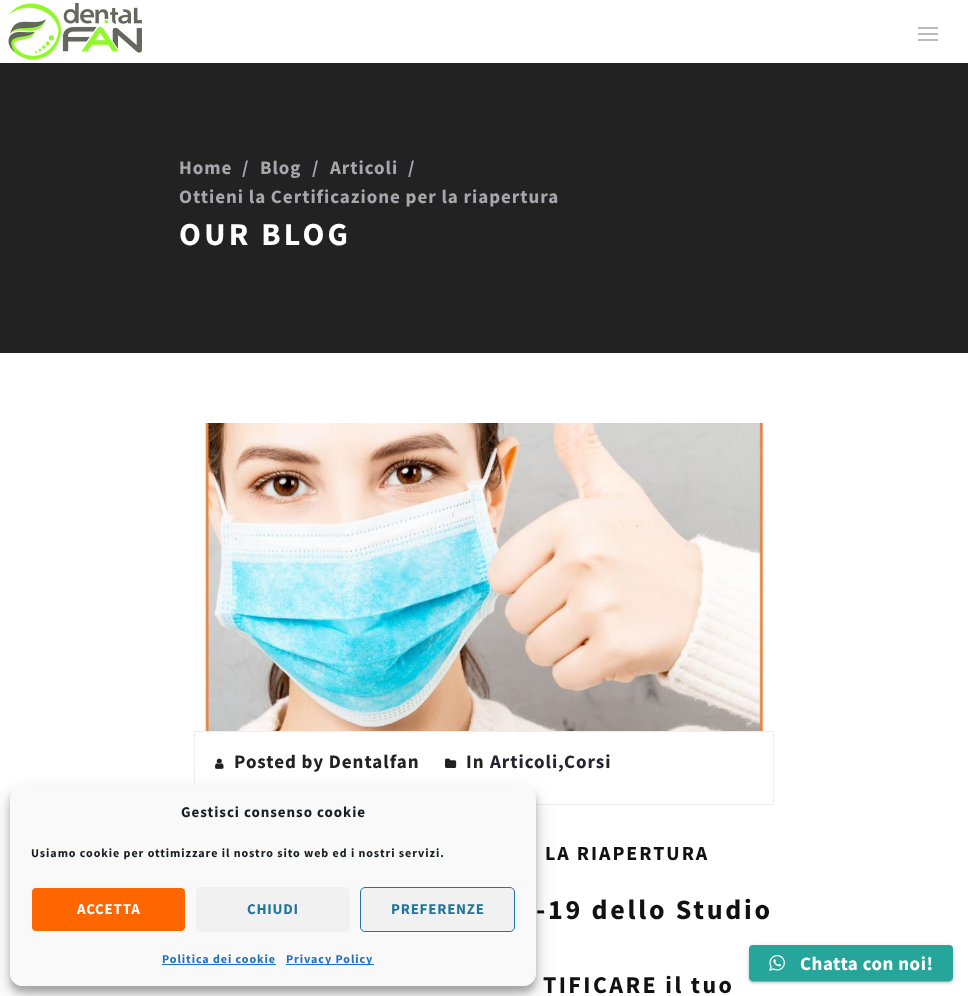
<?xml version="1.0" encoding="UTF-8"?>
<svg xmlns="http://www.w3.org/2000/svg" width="968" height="996">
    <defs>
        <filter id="blur1" x="-50%" y="-200%" width="200%" height="500%"><feGaussianBlur stdDeviation="3"/></filter>
        <filter id="blur2" x="-50%" y="-200%" width="200%" height="500%"><feGaussianBlur stdDeviation="10"/></filter>
        <filter id="blur3" x="-50%" y="-200%" width="200%" height="500%"><feGaussianBlur stdDeviation="0.5"/></filter>
        <filter id="blur4" x="-50%" y="-200%" width="200%" height="500%"><feGaussianBlur stdDeviation="2.5"/></filter>
        <filter id="blur5" x="-50%" y="-200%" width="200%" height="500%"><feGaussianBlur stdDeviation="1"/></filter>
    </defs>
    <rect width="100%" height="100%" fill="#FFFFFF"/>
    <image x="8" y="3" width="134" height="57" href="img_01.png"/>
    <rect x="918" y="27" width="20" height="2" fill="#BBBBBB"/>
    <rect x="918" y="33" width="20" height="2" fill="#BBBBBB"/>
    <rect x="918" y="39" width="20" height="2" fill="#BBBBBB"/>
    <rect x="0" y="63" width="968" height="290" fill="#222222"/>
    <text x="179" y="174" font-family="Source Sans Pro" font-size="19" font-weight="700" letter-spacing="0.95" fill="#A6A6AC">Home</text>
    <text x="242" y="174" font-family="Source Sans Pro" font-size="19" font-weight="700" letter-spacing="0.95" fill="#A6A6AC">/</text>
    <text x="260" y="174" font-family="Source Sans Pro" font-size="19" font-weight="700" letter-spacing="0.95" fill="#A6A6AC">Blog</text>
    <text x="312" y="174" font-family="Source Sans Pro" font-size="19" font-weight="700" letter-spacing="0.95" fill="#A6A6AC">/</text>
    <text x="330" y="174" font-family="Source Sans Pro" font-size="19" font-weight="700" letter-spacing="0.95" fill="#A6A6AC">Articoli</text>
    <text x="408" y="174" font-family="Source Sans Pro" font-size="19" font-weight="700" letter-spacing="0.95" fill="#A6A6AC">/</text>
    <text x="179" y="203" font-family="Source Sans Pro" font-size="19" font-weight="700" letter-spacing="0.95" fill="#A6A6AC">Ottieni la Certificazione per la riapertura</text>
    <text x="179" y="245" font-family="Source Sans Pro" font-size="32" font-weight="700" letter-spacing="3.25" fill="#FFFFFF">OUR BLOG</text>
    <image x="204" y="423" width="560" height="308" href="img_02.png"/>
    <rect x="194.5" y="731.5" width="579" height="73" fill="none" stroke="#EEEEEE"/>
    <image x="215" y="758" width="9" height="11" href="img_03.png"/>
    <text x="234" y="768" font-family="Source Sans Pro" font-size="19" font-weight="700" letter-spacing="0.95" fill="#222222">Posted by Dentalfan</text>
    <image x="445" y="758" width="12" height="10" href="img_04.png"/>
    <text x="466" y="768" font-family="Source Sans Pro" font-size="19" font-weight="700" letter-spacing="0.95" fill="#222222">In</text>
    <text x="490" y="768" font-family="Source Sans Pro" font-size="19" font-weight="700" letter-spacing="0.95" fill="#232331">Articoli</text>
    <text x="558" y="768" font-family="Source Sans Pro" font-size="19" font-weight="700" letter-spacing="0.95" fill="#222222">,</text>
    <text x="564" y="768" font-family="Source Sans Pro" font-size="19" font-weight="700" letter-spacing="0.95" fill="#232331">Corsi</text>
    <text x="545" y="860" font-family="Source Sans Pro" font-size="20" font-weight="700" letter-spacing="2" fill="#111111">LA RIAPERTURA</text>
    <text x="536" y="919" font-family="Source Sans Pro" font-size="28" font-weight="700" letter-spacing="2.75" fill="#111111">-19 dello Studio</text>
    <text x="543" y="993" font-family="Source Sans Pro" font-size="24" font-weight="700" letter-spacing="2.4" fill="#111111">TIFICARE il tuo</text>
    <rect x="10" y="791" width="526" height="201" rx="12" fill="#000000" fill-opacity="0.23" filter="url(#blur1)"/>
    <rect x="10" y="795" width="526" height="201" rx="12" fill="#000000" fill-opacity="0.19" filter="url(#blur2)"/>
    <rect x="10.5" y="785.5" width="525" height="200" rx="11.5" fill="#F9F9F9" stroke="#F9F9F9"/>
    <text x="181" y="817" font-family="Source Sans Pro" font-size="15" font-weight="700" letter-spacing="0.95" fill="#191E23">Gestisci consenso cookie</text>
    <text x="31" y="857" font-family="Source Sans Pro" font-size="12" font-weight="700" letter-spacing="0.95" fill="#191E23">Usiamo cookie per ottimizzare il nostro sito web ed i nostri servizi.</text>
    <rect x="31.5" y="887.5" width="154" height="44" rx="4.5" fill="#FF6600" stroke="#FFFFFF"/>
    <text x="77" y="914" font-family="Source Sans Pro" font-size="15" font-weight="700" letter-spacing="0.75" fill="#FFFFFF">ACCETTA</text>
    <rect x="196" y="887" width="154" height="45" rx="5" fill="#F1F1F1"/>
    <text x="247" y="914" font-family="Source Sans Pro" font-size="15" font-weight="700" letter-spacing="0.75" fill="#21759B">CHIUDI</text>
    <rect x="360.5" y="887.5" width="154" height="44" rx="4.5" fill="#F1F1F1" stroke="#21759B"/>
    <text x="391" y="914" font-family="Source Sans Pro" font-size="15" font-weight="700" letter-spacing="0.75" fill="#21759B">PREFERENZE</text>
    <text x="162" y="963" font-family="Source Sans Pro" font-size="12" font-weight="700" letter-spacing="0.95" fill="#1E73BE">Politica dei cookie</text>
    <rect x="162" y="964" width="114" height="1" fill="#1E73BE"/>
    <rect x="286" y="964" width="88" height="1" fill="#1E73BE"/>
    <text x="286" y="963" font-family="Source Sans Pro" font-size="12" font-weight="700" letter-spacing="0.95" fill="#1E73BE">Privacy Policy</text>
    <rect x="751" y="950" width="200" height="32" rx="2" fill="#000000" fill-opacity="0.2" filter="url(#blur3)"/>
    <rect x="749" y="946" width="204" height="36" rx="4" fill="#000000" fill-opacity="0.12" filter="url(#blur4)"/>
    <rect x="749" y="947" width="204" height="36" rx="4" fill="#000000" fill-opacity="0.14" filter="url(#blur5)"/>
    <rect x="749" y="945" width="204" height="36" rx="4" fill="#26A69A"/>
    <image x="769" y="955" width="16" height="16" href="img_05.png"/>
    <text x="800" y="970" font-family="Source Sans Pro" font-size="19" font-weight="700" letter-spacing="0.5" fill="#FFFFFF">Chatta con noi!</text>
</svg>
